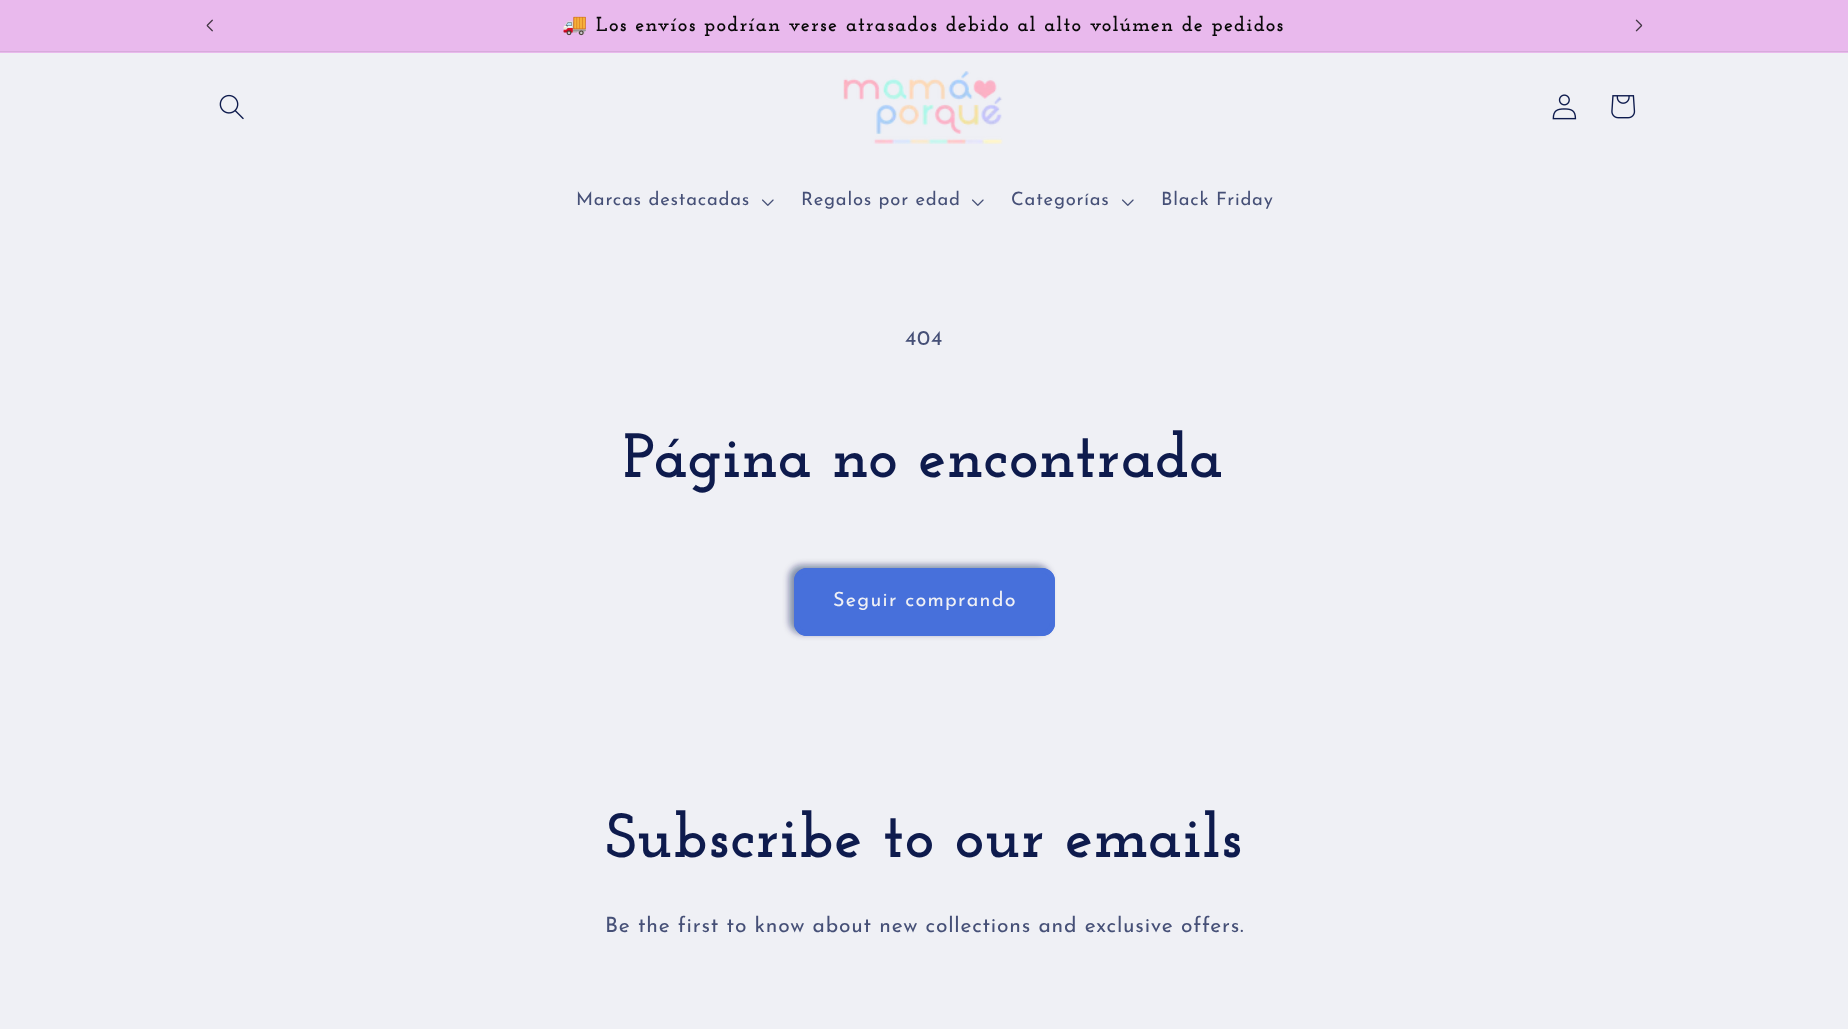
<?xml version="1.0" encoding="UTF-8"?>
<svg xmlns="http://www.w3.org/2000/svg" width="1848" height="1029">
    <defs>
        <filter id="blur1" x="-50%" y="-200%" width="200%" height="500%"><feGaussianBlur stdDeviation="3"/></filter>
    </defs>
    <rect width="100%" height="100%" fill="#EFF0F5"/>
    <rect x="0" y="0" width="1848" height="53" fill="#E9B9ED"/>
    <rect x="0" y="51" width="1848" height="1" fill="#D7ABDB"/>
    <image x="206" y="19" width="7" height="13" href="img_01.png"/>
    <text x="562" y="31" font-family="Noto Color Emoji" font-size="20.3" font-weight="700" letter-spacing="1.3" fill="#090909">🚚</text>
    <text x="596" y="31" font-family="Josefin Slab" font-size="20.3" font-weight="700" letter-spacing="1.3" fill="#090909">Los envíos podrían verse atrasados debido al alto volúmen de pedidos</text>
    <image x="1635" y="19" width="8" height="13" href="img_02.png"/>
    <image x="219" y="94" width="25" height="26" href="img_03.png"/>
    <image x="843" y="71" width="160" height="73" href="img_04.png"/>
    <image x="1552" y="94" width="25" height="26" href="img_05.png"/>
    <image x="1611" y="95" width="25" height="24" href="img_06.png"/>
    <text x="576" y="205" font-family="Josefin Sans" font-size="18.4" letter-spacing="0.8" fill="#465077">Marcas destacadas</text>
    <image x="762" y="199" width="12" height="7" href="img_07.png"/>
    <text x="801" y="205" font-family="Josefin Sans" font-size="18.4" letter-spacing="0.8" fill="#465077">Regalos por edad</text>
    <image x="972" y="199" width="12" height="7" href="img_07.png"/>
    <text x="1011" y="205" font-family="Josefin Sans" font-size="18.4" letter-spacing="0.8" fill="#465077">Categorías</text>
    <image x="1122" y="199" width="12" height="7" href="img_07.png"/>
    <text x="1161" y="205" font-family="Josefin Sans" font-size="18.4" letter-spacing="0.8" fill="#465077">Black Friday</text>
    <text x="905" y="345" font-family="Josefin Sans" font-size="21" letter-spacing="0.8" fill="#465077">404</text>
    <text x="623" y="477" font-family="Josefin Slab" font-size="62.5" font-weight="700" letter-spacing="0.9" fill="#0E1B4D">Página no encontrada</text>
    <rect x="789" y="565" width="261" height="69" rx="13" fill="#0E1B4D" fill-opacity="0.45" filter="url(#blur1)"/>
    <rect x="794" y="568" width="261" height="68" rx="13" fill="#4770DB"/>
    <rect x="796.5" y="570.5" width="256" height="63" rx="10.5" fill="none" stroke="#4770DB" stroke-width="5"/>
    <text x="833" y="606" font-family="Josefin Sans" font-size="19.75" letter-spacing="1.3" fill="#EFF0F5">Seguir comprando</text>
    <text x="606" y="857" font-family="Josefin Slab" font-size="62.5" font-weight="700" letter-spacing="0.9" fill="#0E1B4D">Subscribe to our emails</text>
    <text x="605" y="932" font-family="Josefin Sans" font-size="21" letter-spacing="0.8" fill="#465077">Be the first to know about new collections and exclusive offers.</text>
</svg>
